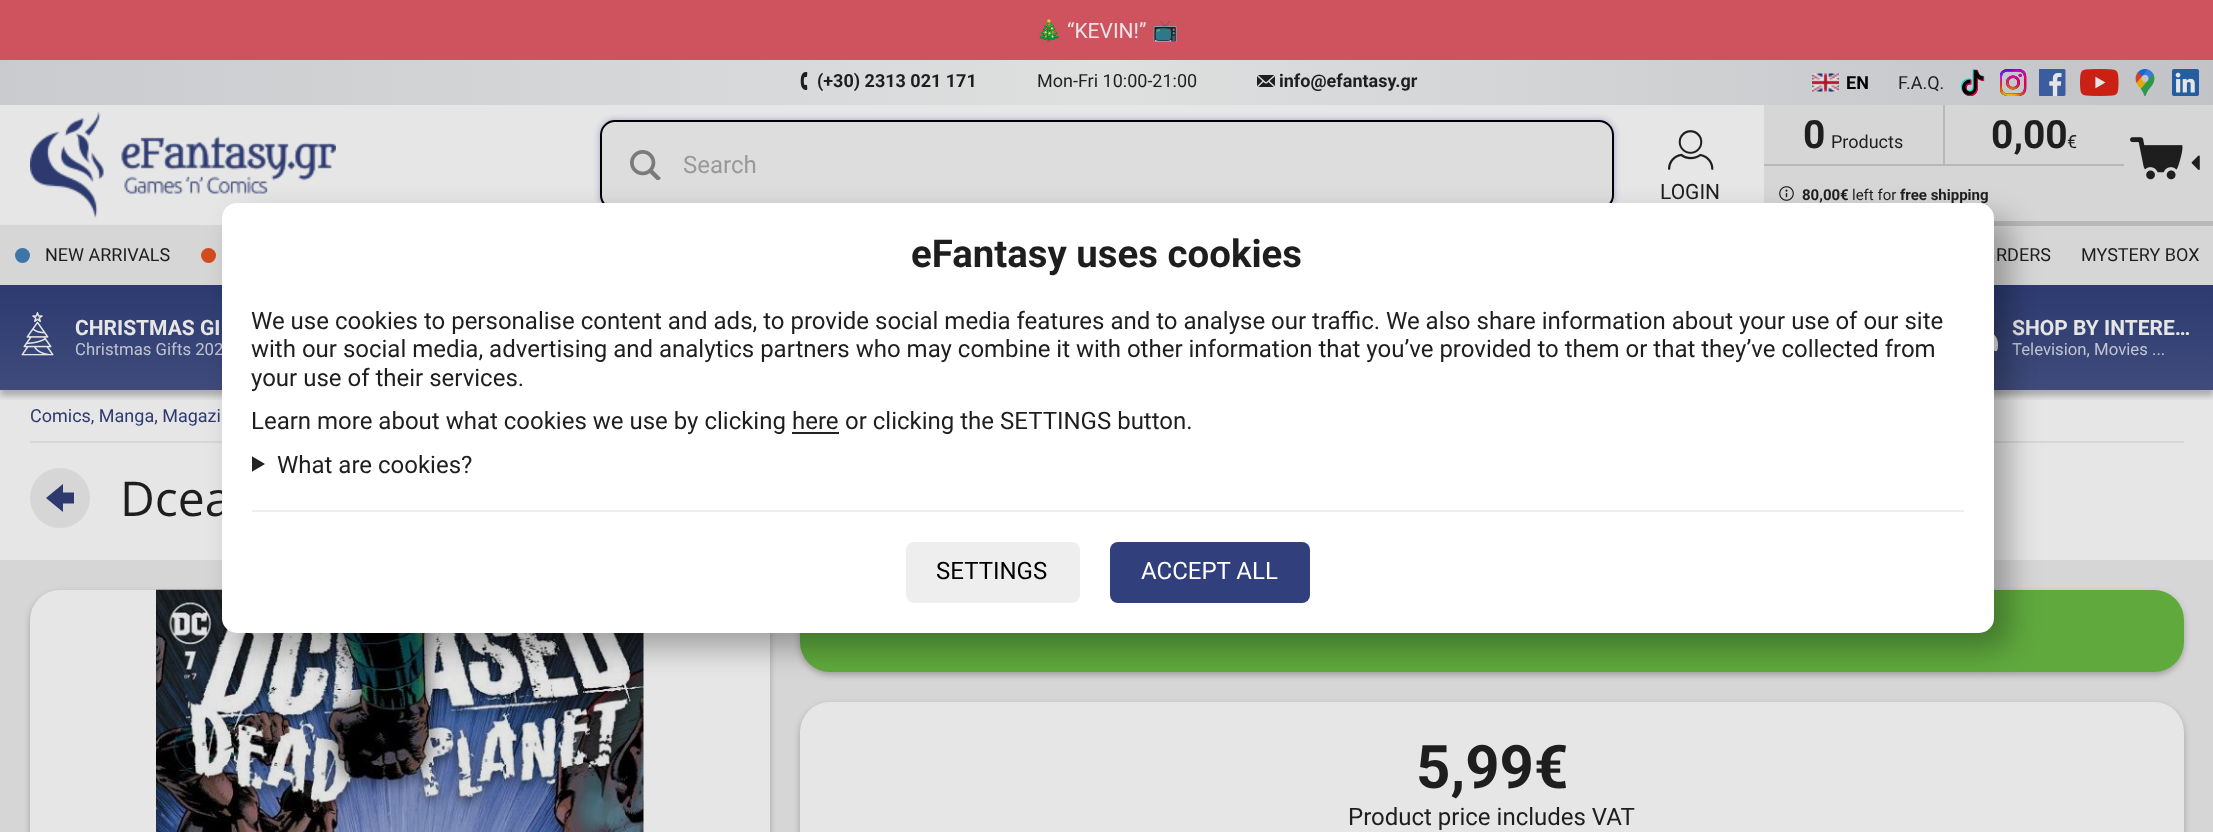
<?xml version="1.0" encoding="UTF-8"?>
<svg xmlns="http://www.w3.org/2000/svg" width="2213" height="832">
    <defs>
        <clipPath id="clip1"><rect x="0" y="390" width="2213" height="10"/></clipPath>
        <filter id="blur1" x="-50%" y="-200%" width="200%" height="500%"><feGaussianBlur stdDeviation="3"/></filter>
        <clipPath id="clip2"><rect x="1037" y="18" width="141" height="24"/></clipPath>
        <linearGradient id="g1" gradientUnits="userSpaceOnUse" x1="0" y1="83" x2="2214" y2="82"><stop offset="0" stop-color="#CACBCE"/><stop offset="0.5" stop-color="#DEDFDF"/><stop offset="1" stop-color="#C1C3C7"/></linearGradient>
        <linearGradient id="g2" gradientUnits="userSpaceOnUse" x1="1107" y1="390" x2="1107" y2="285"><stop offset="0" stop-color="#3F4B7B"/><stop offset="1" stop-color="#2C3A70"/></linearGradient>
        <filter id="blur2" x="-50%" y="-200%" width="200%" height="500%"><feGaussianBlur stdDeviation="15"/></filter>
        <clipPath id="clip3"><rect x="252" y="233" width="1712" height="247"/></clipPath>
    </defs>
    <rect width="100%" height="100%" fill="#E6E6E6"/>
    <g clip-path="url(#clip1)">
        <rect x="0" y="6" width="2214" height="390" fill="#000000" fill-opacity="0.25" filter="url(#blur1)"/>
    </g>
    <rect x="0" y="0" width="2213" height="60" fill="#CF525F"/>
    <g clip-path="url(#clip2)">
        <text x="1036" y="38" font-family="Noto Color Emoji" font-size="21" fill="#E6E6E6">🎄</text>
    </g>
    <text x="1067" y="38" font-family="Roboto" font-size="21" fill="#E6E6E6">“KEVIN!”</text>
    <g clip-path="url(#clip2)">
        <text x="1152" y="38" font-family="Noto Color Emoji" font-size="21" fill="#E6E6E6">📺</text>
    </g>
    <rect x="0" y="60" width="2213" height="45" fill="url(#g1)"/>
    <image x="800" y="71" width="8" height="19" href="img_01.png"/>
    <text x="817" y="87" font-family="Roboto" font-size="18" font-weight="700" fill="#1E1E1E">(+30) 2313 021 171</text>
    <text x="1037" y="87" font-family="Roboto" font-size="18" fill="#1E1E1E">Mon-Fri 10:00-21:00</text>
    <image x="1257" y="75" width="18" height="12" href="img_02.png"/>
    <text x="1279" y="87" font-family="Roboto" font-size="18" font-weight="700" fill="#1E1E1E">info@efantasy.gr</text>
    <image x="1812" y="73" width="27" height="19" href="img_03.png"/>
    <text x="1846" y="89" font-family="Roboto" font-size="18" font-weight="700" fill="#000000">EN</text>
    <text x="1898" y="89" font-family="Roboto" font-size="18" fill="#1E1E1E">F.A.Q.</text>
    <image x="1960" y="69" width="25" height="27" href="img_04.png"/>
    <image x="2000" y="69" width="27" height="27" href="img_05.png"/>
    <image x="2039" y="69" width="27" height="27" href="img_06.png"/>
    <image x="2079" y="69" width="40" height="27" href="img_07.png"/>
    <image x="2135" y="69" width="20" height="27" href="img_08.png"/>
    <image x="2172" y="69" width="27" height="27" href="img_09.png"/>
    <image x="30" y="112" width="306" height="106" href="img_10.png"/>
    <rect x="600" y="120" width="1014" height="90" rx="15" fill="#2E3A9F" fill-opacity="0.4" filter="url(#blur1)"/>
    <rect x="601" y="121" width="1012" height="88" rx="14" fill="#DDDDDD" stroke="#000000" stroke-width="2"/>
    <image x="630" y="150" width="31" height="30" href="img_11.png"/>
    <text x="683" y="173" font-family="Roboto" font-size="24" fill="#999999">Search</text>
    <image x="1668" y="130" width="46" height="40" href="img_12.png"/>
    <text x="1660" y="199" font-family="Roboto" font-size="21" fill="#1E1E1E">LOGIN</text>
    <rect x="1764" y="105" width="449" height="116" fill="#D6D6D6"/>
    <rect x="1943" y="105" width="2" height="60" fill="#B8B8B8"/>
    <rect x="1764" y="164" width="360" height="2" fill="#B8B8B8"/>
    <text x="1803" y="148" font-family="Roboto" font-size="39" font-weight="700" fill="#1E1E1E">0</text>
    <text x="1831" y="148" font-family="Roboto" font-size="18" fill="#1E1E1E">Products</text>
    <text x="1991" y="148" font-family="Roboto" font-size="39" font-weight="700" fill="#1E1E1E">0,00</text>
    <text x="2067" y="148" font-family="Roboto" font-size="18" fill="#1E1E1E">€</text>
    <image x="1779" y="186" width="15" height="15" href="img_13.png"/>
    <text x="1802" y="200" font-family="Roboto" font-size="15" font-weight="700" fill="#1E1E1E">80,00€</text>
    <text x="1852" y="200" font-family="Roboto" font-size="15" fill="#1E1E1E">left for</text>
    <text x="1900" y="200" font-family="Roboto" font-size="15" font-weight="700" fill="#1E1E1E">free shipping</text>
    <image x="2130" y="137" width="53" height="43" href="img_14.png"/>
    <image x="2191" y="155" width="9" height="15" href="img_15.png"/>
    <rect x="0" y="225" width="2213" height="60" fill="#D6D6D6"/>
    <rect x="1994" y="221" width="219" height="5" fill="#B8B8B8"/>
    <circle cx="22.5" cy="255.5" r="7.5" fill="#3D75A9"/>
    <text x="45" y="261" font-family="Roboto" font-size="18" fill="#1E1E1E">ΝEW ARRIVALS</text>
    <circle cx="208.5" cy="255.5" r="7.5" fill="#D24C1D"/>
    <text x="1996" y="261" font-family="Roboto" font-size="18" fill="#1E1E1E">RDERS</text>
    <text x="2081" y="261" font-family="Roboto" font-size="18" fill="#1E1E1E">MYSTERY BOX</text>
    <rect x="0" y="285" width="2213" height="105" fill="url(#g2)"/>
    <image x="21" y="312" width="33" height="44" href="img_16.png"/>
    <text x="75" y="335" font-family="Roboto" font-size="21" font-weight="700" fill="#E6E6E6">CHRISTMAS GI</text>
    <text x="75" y="355" font-family="Roboto" font-size="16.75" fill="#C2C5CF">Christmas Gifts 202</text>
    <image x="1994" y="334" width="4" height="18" href="img_17.png"/>
    <text x="2012" y="335" font-family="Roboto" font-size="21" font-weight="700" fill="#E6E6E6">SHOP BY INTERE…</text>
    <text x="2012" y="355" font-family="Roboto" font-size="16.75" fill="#C2C5CF">Television, Movies ...</text>
    <rect x="0" y="560" width="2213" height="272" fill="#D6D6D6"/>
    <rect x="30" y="441" width="2154" height="2" fill="#D6D6D6"/>
    <rect x="30" y="593" width="740" height="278" rx="30" fill="#000000" fill-opacity="0.25" filter="url(#blur1)"/>
    <rect x="30" y="590" width="740" height="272" rx="30" fill="#E6E6E6"/>
    <image x="156" y="589" width="488" height="243" href="img_18.png"/>
    <rect x="800" y="593" width="1384" height="82" rx="30" fill="#000000" fill-opacity="0.25" filter="url(#blur1)"/>
    <rect x="800" y="590" width="1384" height="82" rx="30" fill="#5FA93D"/>
    <rect x="237" y="218" width="1772" height="430" rx="15" fill="#000000" fill-opacity="0.3" filter="url(#blur2)"/>
    <text x="120" y="516" font-family="Open Sans" font-size="48" fill="#1E1E1E">Dcea</text>
    <rect x="222" y="203" width="1772" height="430" rx="15" fill="#FFFFFF"/>
    <text x="911" y="267" font-family="Roboto" font-size="38.4" font-weight="700" fill="#1E1E1E">eFantasy uses cookies</text>
    <text font-family="Roboto" font-size="24" fill="#1E1E1E">
        <tspan x="251" y="329">We use cookies to personalise content and ads, to provide social media features and to analyse our traffic. We also share information about your use of our site</tspan>
        <tspan x="251" y="357">with our social media, advertising and analytics partners who may combine it with other information that you’ve provided to them or that they’ve collected from</tspan>
        <tspan x="251" y="386">your use of their services.</tspan>
        <tspan x="251" y="429">Learn more about what cookies we use by clicking</tspan>
    </text>
    <text x="792" y="429" font-family="Roboto" font-size="24" fill="#1E1E1E">here</text>
    <rect x="792" y="432" width="47" height="2" fill="#222222"/>
    <text x="845" y="429" font-family="Roboto" font-size="24" fill="#1E1E1E">or clicking the SETTINGS button.</text>
    <g clip-path="url(#clip3)">
        <path d="M 251.5 456 L 265 464 L 251.5 472 Z" fill="#212121"/>
    </g>
    <text x="277" y="473" font-family="Roboto" font-size="24" fill="#1E1E1E">What are cookies?</text>
    <rect x="252" y="510" width="1712" height="2" fill="#EEEEEE"/>
    <rect x="906" y="542" width="174" height="61" rx="8" fill="#EEEEEE"/>
    <text x="936" y="579" font-family="Roboto" font-size="24" fill="#000000">SETTINGS</text>
    <rect x="1110" y="542" width="200" height="61" rx="8" fill="#31407C"/>
    <text x="1141" y="579" font-family="Roboto" font-size="24" fill="#FFFFFF">ACCEPT ALL</text>
    <text x="30" y="422" font-family="Roboto" font-size="18" fill="#2C3A70">Comics, Manga, Magazi</text>
    <circle cx="60" cy="498" r="30" fill="#D6D6D6"/>
    <path d="M 63 492.5 V 484 L 46 498 L 63 512 V 503.5 H 74 V 492.5 Z" fill="#2C3A70"/>
    <rect x="800" y="705" width="1384" height="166" rx="30" fill="#000000" fill-opacity="0.25" filter="url(#blur1)"/>
    <rect x="800" y="702" width="1384" height="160" rx="30" fill="#E6E6E6"/>
    <text x="1416" y="788" font-family="Roboto" font-size="60" font-weight="700" fill="#1E1E1E">5,99€</text>
    <text x="1348" y="825" font-family="Roboto" font-size="24" fill="#1E1E1E">Product price includes VAT</text>
</svg>
